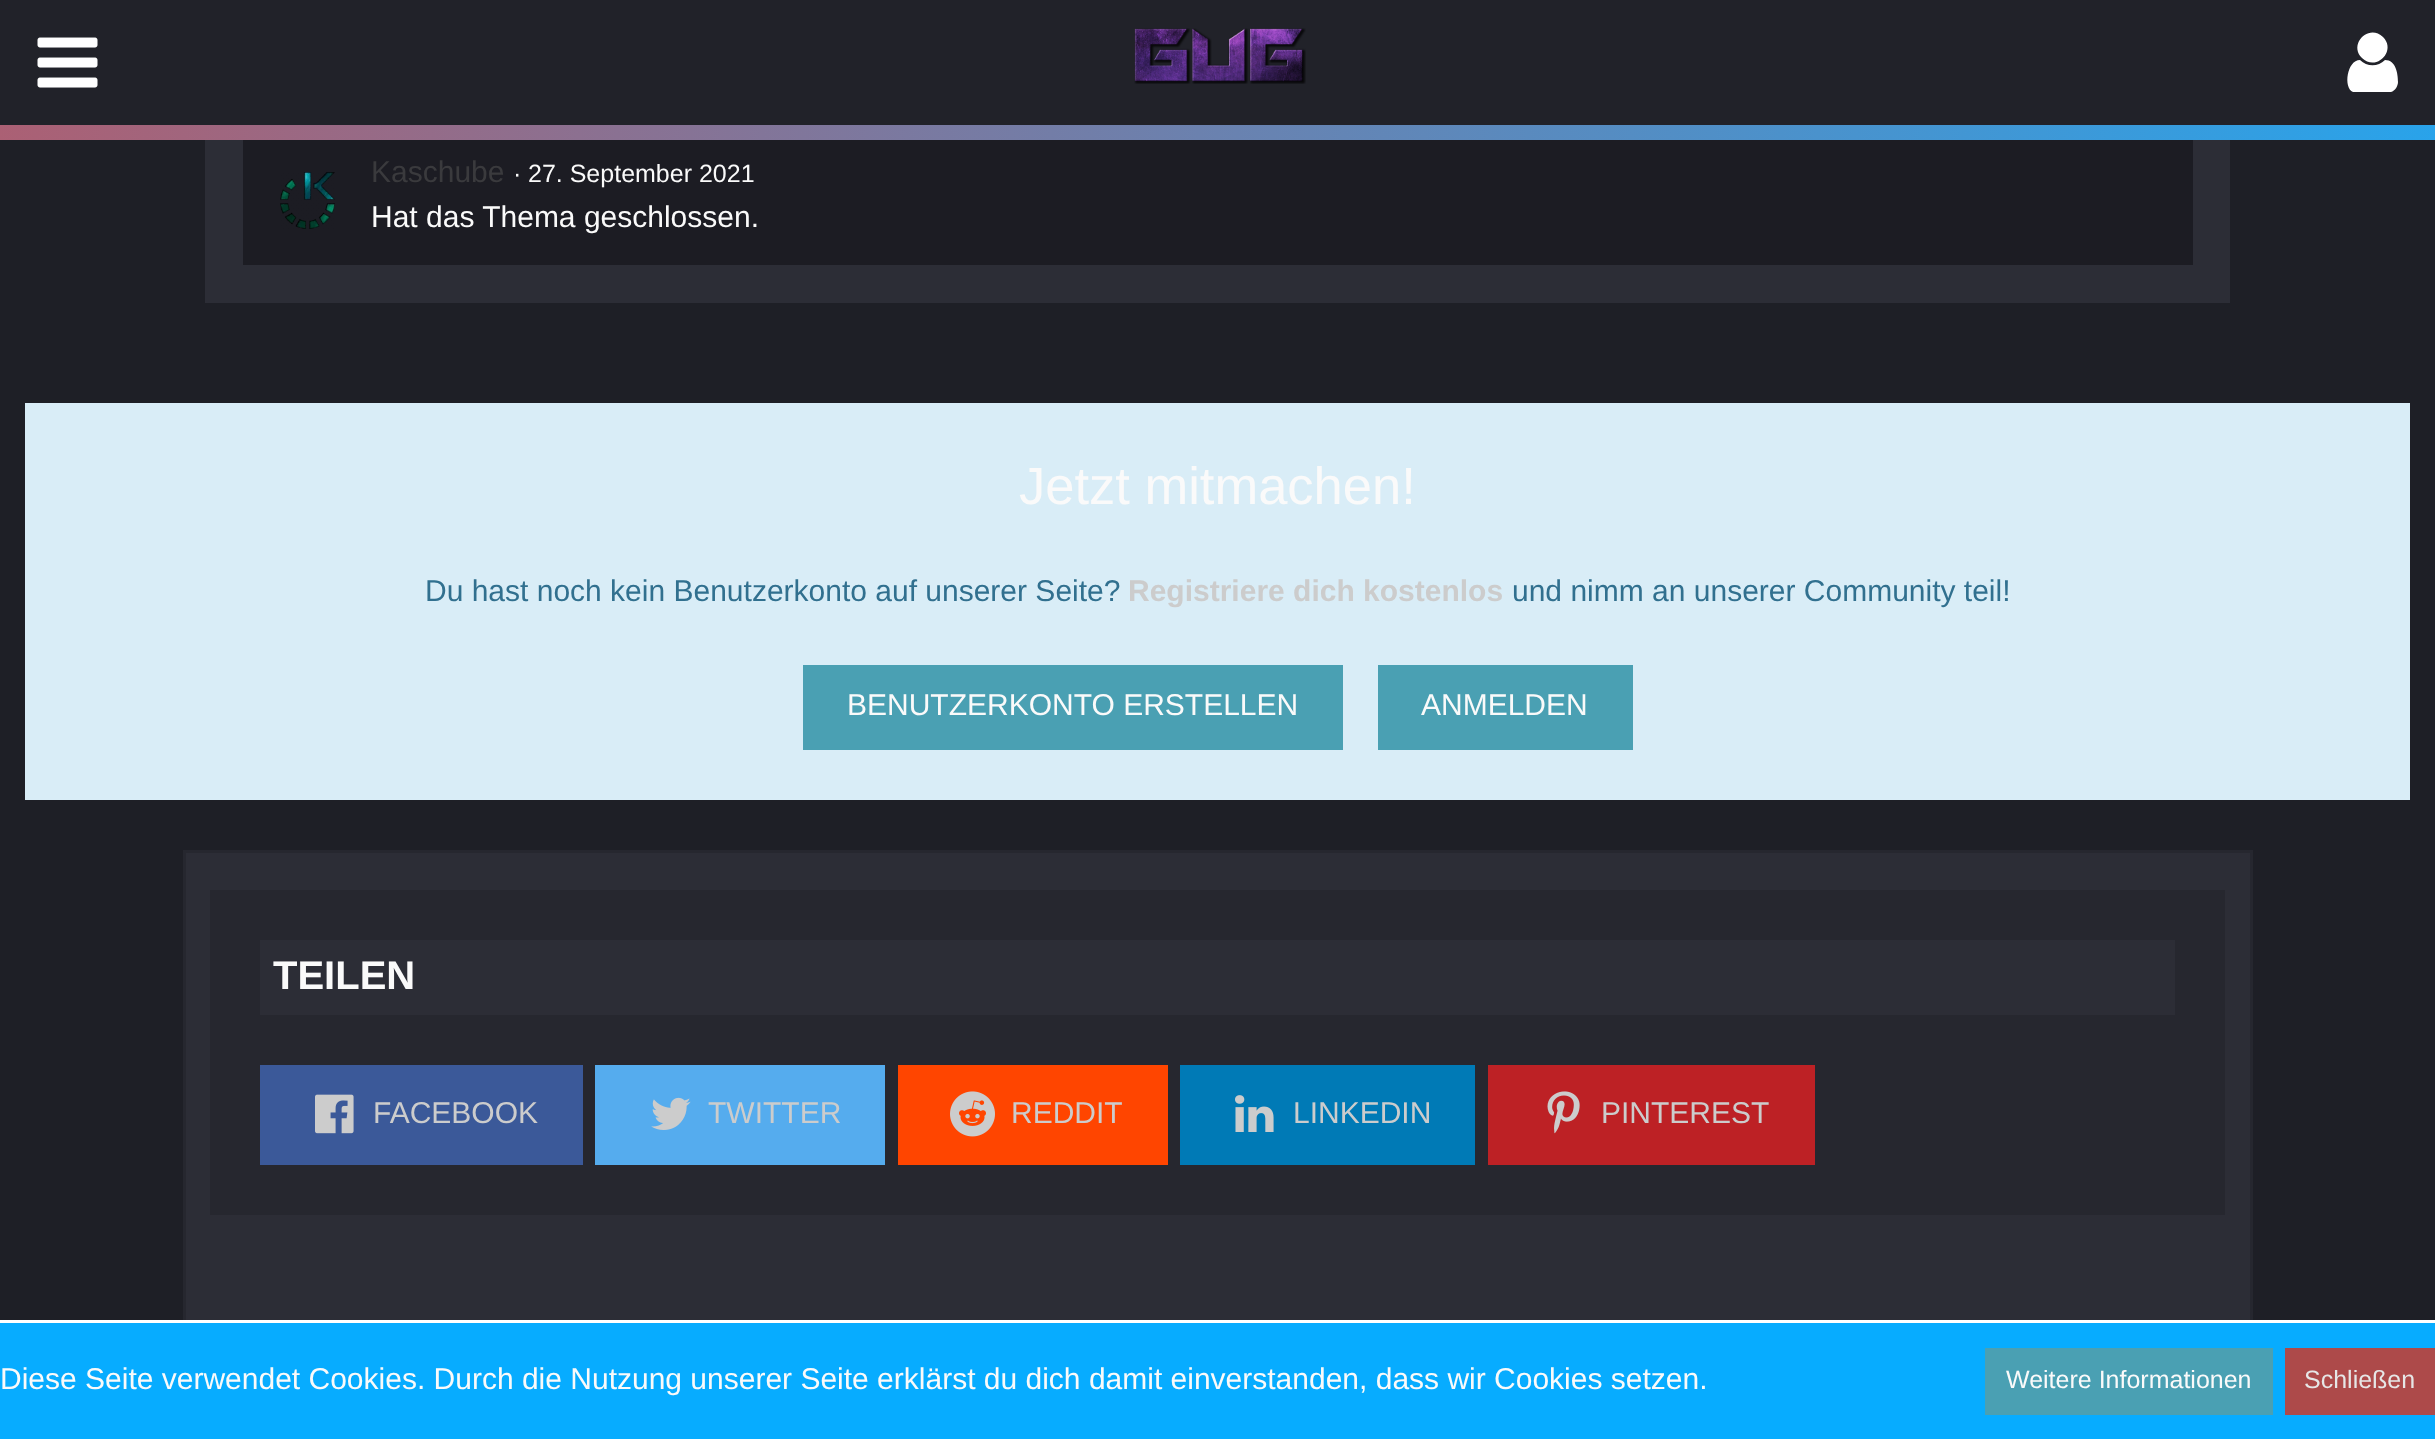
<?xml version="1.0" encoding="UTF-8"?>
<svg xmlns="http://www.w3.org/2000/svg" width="2435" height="1439">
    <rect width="100%" height="100%" fill="#1E1F26"/>
    <rect x="0" y="0" width="2435" height="125" fill="#212229"/>
    <image x="0" y="125" width="2435" height="15" href="img_01.png"/>
    <image x="37" y="37" width="61" height="51" href="img_02.png"/>
    <path d="M 2398 82 C 2398 86 2395 91 2391 92 H 2361 H 2353 C 2343 88 2347 60 2360 60 C 2367 67 2378 67 2385 60 C 2396 60 2398 74 2398 82 Z M 2383 37 C 2397 51 2376 72 2362 58 C 2348 44 2369 23 2383 37 Z" fill="#FFFFFF"/>
    <image x="1134" y="28" width="172" height="56" href="img_03.png"/>
    <rect x="205" y="140" width="2025" height="163" fill="#2C2D36"/>
    <rect x="243" y="140" width="1950" height="125" fill="#1C1C23"/>
    <image x="280" y="172" width="55" height="57" href="img_04.png"/>
    <text x="371" y="182" font-family="Liberation Sans" font-size="30" fill="#3A3A3D">Kaschube</text>
    <text x="513" y="182" font-family="Liberation Sans" font-size="25" fill="#FAFAFA">·</text>
    <text x="528" y="182" font-family="Liberation Sans" font-size="25" fill="#FAFAFA">27. September 2021</text>
    <text x="371" y="227" font-family="Liberation Sans" font-size="30" fill="#FAFAFA">Hat das Thema geschlossen.</text>
    <rect x="25" y="403" width="2385" height="397" fill="#D9EDF7"/>
    <text x="1019" y="504" font-family="Liberation Sans" font-size="52.5" fill="#FAFAFA">Jetzt mitmachen!</text>
    <text x="425" y="601" font-family="Liberation Sans" font-size="30" fill="#31708F">Du hast noch kein Benutzerkonto auf unserer Seite?</text>
    <text x="1128" y="601" font-family="Liberation Sans" font-size="30" font-weight="700" fill="#CCCCCC">Registriere dich kostenlos</text>
    <text x="1512" y="601" font-family="Liberation Sans" font-size="30" fill="#31708F">und nimm an unserer Community teil!</text>
    <rect x="803" y="665" width="540" height="85" fill="#4AA0B3"/>
    <text x="847" y="715" font-family="Liberation Sans" font-size="30" fill="#FAFAFA">BENUTZERKONTO ERSTELLEN</text>
    <rect x="1378" y="665" width="255" height="85" fill="#4AA0B3"/>
    <text x="1421" y="715" font-family="Liberation Sans" font-size="30" fill="#FAFAFA">ANMELDEN</text>
    <rect x="186" y="853" width="2064" height="467" fill="#2C2D36"/>
    <rect x="184.5" y="851.5" width="2067" height="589" fill="none" stroke="#26272F" stroke-width="3"/>
    <rect x="210" y="890" width="2015" height="325" fill="#26272F"/>
    <rect x="260" y="940" width="1915" height="75" fill="#2C2D36"/>
    <text x="273" y="989" font-family="Liberation Sans" font-size="40" font-weight="700" fill="#FAFAFA">TEILEN</text>
    <rect x="260" y="1065" width="323" height="100" fill="#3B5999"/>
    <image x="315" y="1094" width="39" height="40" href="img_05.png"/>
    <text x="373" y="1123" font-family="Liberation Sans" font-size="30" fill="#CCCCCC">FACEBOOK</text>
    <rect x="595" y="1065" width="290" height="100" fill="#55ACEE"/>
    <image x="651" y="1097" width="40" height="33" href="img_06.png"/>
    <text x="708" y="1123" font-family="Liberation Sans" font-size="30" fill="#CCCCCC">TWITTER</text>
    <rect x="898" y="1065" width="270" height="100" fill="#FF4500"/>
    <image x="950" y="1091" width="45" height="46" href="img_07.png"/>
    <text x="1011" y="1123" font-family="Liberation Sans" font-size="30" fill="#CCCCCC">REDDIT</text>
    <rect x="1180" y="1065" width="295" height="100" fill="#007AB6"/>
    <image x="1235" y="1095" width="39" height="37" href="img_08.png"/>
    <text x="1293" y="1123" font-family="Liberation Sans" font-size="30" fill="#CCCCCC">LINKEDIN</text>
    <rect x="1488" y="1065" width="327" height="100" fill="#BD2125"/>
    <image x="1547" y="1091" width="33" height="43" href="img_09.png"/>
    <text x="1601" y="1123" font-family="Liberation Sans" font-size="30" fill="#CCCCCC">PINTEREST</text>
    <rect x="0" y="1323" width="2435" height="116" fill="#07ACFF"/>
    <rect x="0" y="1320" width="2435" height="3" fill="#FFFFFF"/>
    <text x="0" y="1389" font-family="Liberation Sans" font-size="30" fill="#FAFAFA">Diese Seite verwendet Cookies. Durch die Nutzung unserer Seite erklärst du dich damit einverstanden, dass wir Cookies setzen.</text>
    <rect x="1985" y="1348" width="288" height="67" fill="#4AA0B3"/>
    <text x="2006" y="1388" font-family="Liberation Sans" font-size="25" fill="#FAFAFA">Weitere Informationen</text>
    <rect x="2285" y="1348" width="150" height="67" fill="#AD4A4A"/>
    <text x="2304" y="1388" font-family="Liberation Sans" font-size="25" fill="#E6E6E6">Schließen</text>
</svg>
